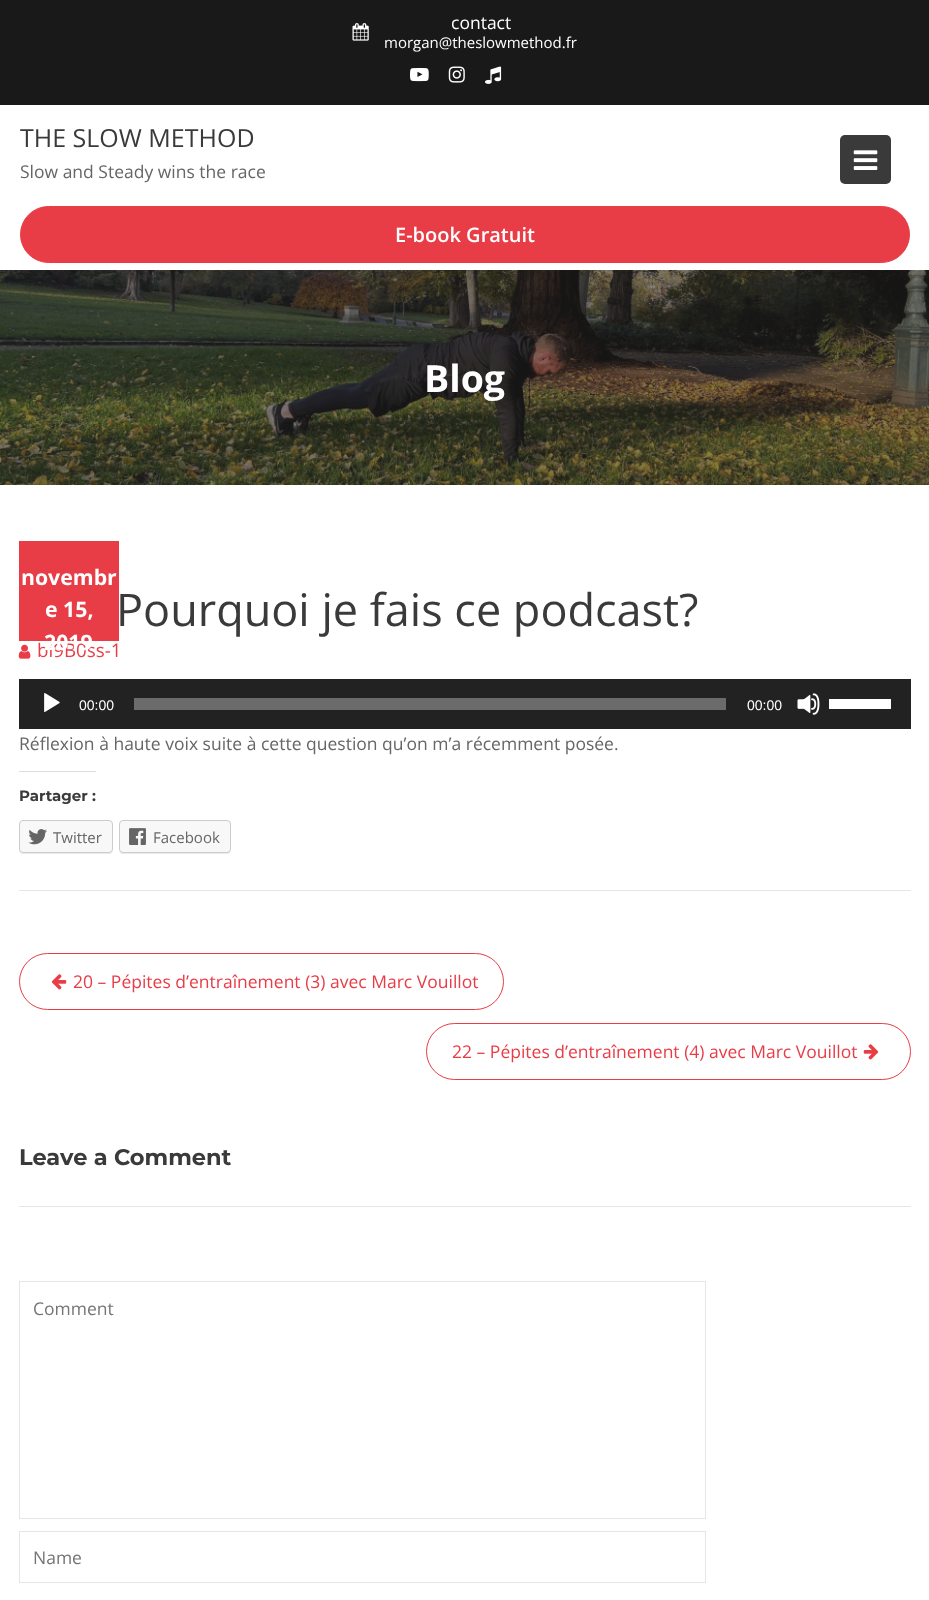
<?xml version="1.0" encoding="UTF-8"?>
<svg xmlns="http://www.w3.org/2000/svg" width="929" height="1600">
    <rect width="100%" height="100%" fill="#FFFFFF"/>
    <rect x="0" y="0" width="929" height="105" fill="#191919"/>
    <image x="352" y="23" width="17" height="18" href="img_01.png"/>
    <text x="451" y="29" font-family="Open Sans" font-size="17.5" fill="#FFFFFF">contact</text>
    <text x="384" y="48" font-family="Open Sans" font-size="15" fill="#FFFFFF">morgan@theslowmethod.fr</text>
    <image x="410" y="67" width="19" height="15" href="img_02.png"/>
    <image x="448" y="66" width="17" height="17" href="img_03.png"/>
    <image x="485" y="66" width="17" height="18" href="img_04.png"/>
    <text x="20" y="147" font-family="Open Sans" font-size="25" fill="#3A3A3A">THE SLOW METHOD</text>
    <rect x="840" y="135" width="51" height="49" rx="5" fill="#3A3A3A"/>
    <image x="853" y="150" width="25" height="20" href="img_05.png"/>
    <text x="20" y="178" font-family="Open Sans" font-size="17.5" fill="#666666">Slow and Steady wins the race</text>
    <rect x="20.5" y="206.5" width="889" height="56" rx="28" fill="#E83D47" stroke="#E83D47"/>
    <text x="395" y="242" font-family="Open Sans" font-size="20" font-weight="600" fill="#FFFFFF">E-book Gratuit</text>
    <image x="0" y="270" width="929" height="215" href="img_06.png"/>
    <text x="424" y="392" font-family="Open Sans" font-size="37.5" font-weight="700" fill="#FFFFFF">Blog</text>
    <rect x="19" y="890" width="892" height="1" fill="#E6E6E6"/>
    <rect x="19" y="541" width="100" height="100" fill="#E83D47"/>
    <text x="21" y="585" font-family="Open Sans" font-size="21.25" font-weight="700" fill="#FFFFFF">novembr</text>
    <text x="45" y="617" font-family="Open Sans" font-size="21.25" font-weight="700" fill="#FFFFFF">e 15,</text>
    <text x="37" y="657" font-family="Open Sans" font-size="18.75" fill="#E83D47">bi9B0ss-1</text>
    <text x="44" y="650" font-family="Open Sans" font-size="21.25" font-weight="700" fill="#FFFFFF">2019</text>
    <text x="116" y="626" font-family="Open Sans" font-size="45" fill="#3A3A3A">Pourquoi je fais ce podcast?</text>
    <image x="18" y="644" width="13" height="15" href="img_07.png"/>
    <rect x="19" y="679" width="892" height="50" fill="#222222"/>
    <image x="44" y="693" width="16" height="19" href="img_08.png"/>
    <text x="79" y="710" font-family="Liberation Sans" font-size="14" fill="#FFFFFF">00:00</text>
    <rect x="134" y="698" width="592" height="12" fill="#6B6B6B"/>
    <text x="747" y="710" font-family="Liberation Sans" font-size="14" fill="#FFFFFF">00:00</text>
    <image x="797" y="693" width="23" height="22" href="img_09.png"/>
    <rect x="829" y="699" width="62" height="10" fill="#FFFFFF"/>
    <text x="19" y="750" font-family="Open Sans" font-size="17.5" fill="#666666">Réflexion à haute voix suite à cette question qu’on m’a récemment posée.</text>
    <rect x="19" y="771" width="77" height="1" fill="#DDDDDD"/>
    <text x="19" y="801" font-family="Montserrat" font-size="15" font-weight="700" fill="#3A3A3A">Partager :</text>
    <path d="M 19 850 C 19 852 21 854 23 854 H 109 C 111 854 113 852 113 850 V 825 L 112 823 V 840 C 112 856 113 852 94 852 H 37 C 33 852 21 855 19 850 Z" fill="#EBEBEB"/>
    <rect x="19.5" y="820.5" width="93" height="32" rx="3.5" fill="#F8F8F8" stroke="#CCCCCC"/>
    <image x="28" y="829" width="19" height="16" href="img_10.png"/>
    <text x="53" y="843" font-family="Open Sans" font-size="15" fill="#666666">Twitter</text>
    <path d="M 119 850 C 119 852 121 854 123 854 H 227 C 229 854 231 852 231 850 C 230 852 229 852 228 852 H 122 C 121 852 120 852 119 850 Z" fill="#EBEBEB"/>
    <rect x="119.5" y="820.5" width="111" height="32" rx="3.5" fill="#F8F8F8" stroke="#CCCCCC"/>
    <image x="129" y="828" width="17" height="17" href="img_11.png"/>
    <text x="153" y="843" font-family="Open Sans" font-size="15" fill="#666666">Facebook</text>
    <rect x="19.5" y="953.5" width="484" height="56" rx="28" fill="none" stroke="#E83D47"/>
    <image x="51" y="974" width="16" height="16" href="img_12.png"/>
    <text x="73" y="988" font-family="Open Sans" font-size="17.5" fill="#E83D47">20 – Pépites d’entraînement (3) avec Marc Vouillot</text>
    <rect x="426.5" y="1023.5" width="484" height="56" rx="28" fill="none" stroke="#E83D47"/>
    <text x="452" y="1058" font-family="Open Sans" font-size="17.5" fill="#E83D47">22 – Pépites d’entraînement (4) avec Marc Vouillot</text>
    <image x="863" y="1044" width="16" height="16" href="img_13.png"/>
    <rect x="19" y="1206" width="892" height="1" fill="#E6E6E6"/>
    <text x="19" y="1165" font-family="Montserrat" font-size="22.5" font-weight="700" fill="#3A3A3A">Leave a Comment</text>
    <rect x="19.5" y="1281.5" width="686" height="237" fill="none" stroke="#E6E6E6"/>
    <text x="33" y="1315" font-family="Open Sans" font-size="17.5" fill="#757575">Comment</text>
    <rect x="19.5" y="1531.5" width="686" height="51" fill="none" stroke="#E6E6E6"/>
    <text x="33" y="1564" font-family="Open Sans" font-size="17.5" fill="#757575">Name</text>
</svg>
